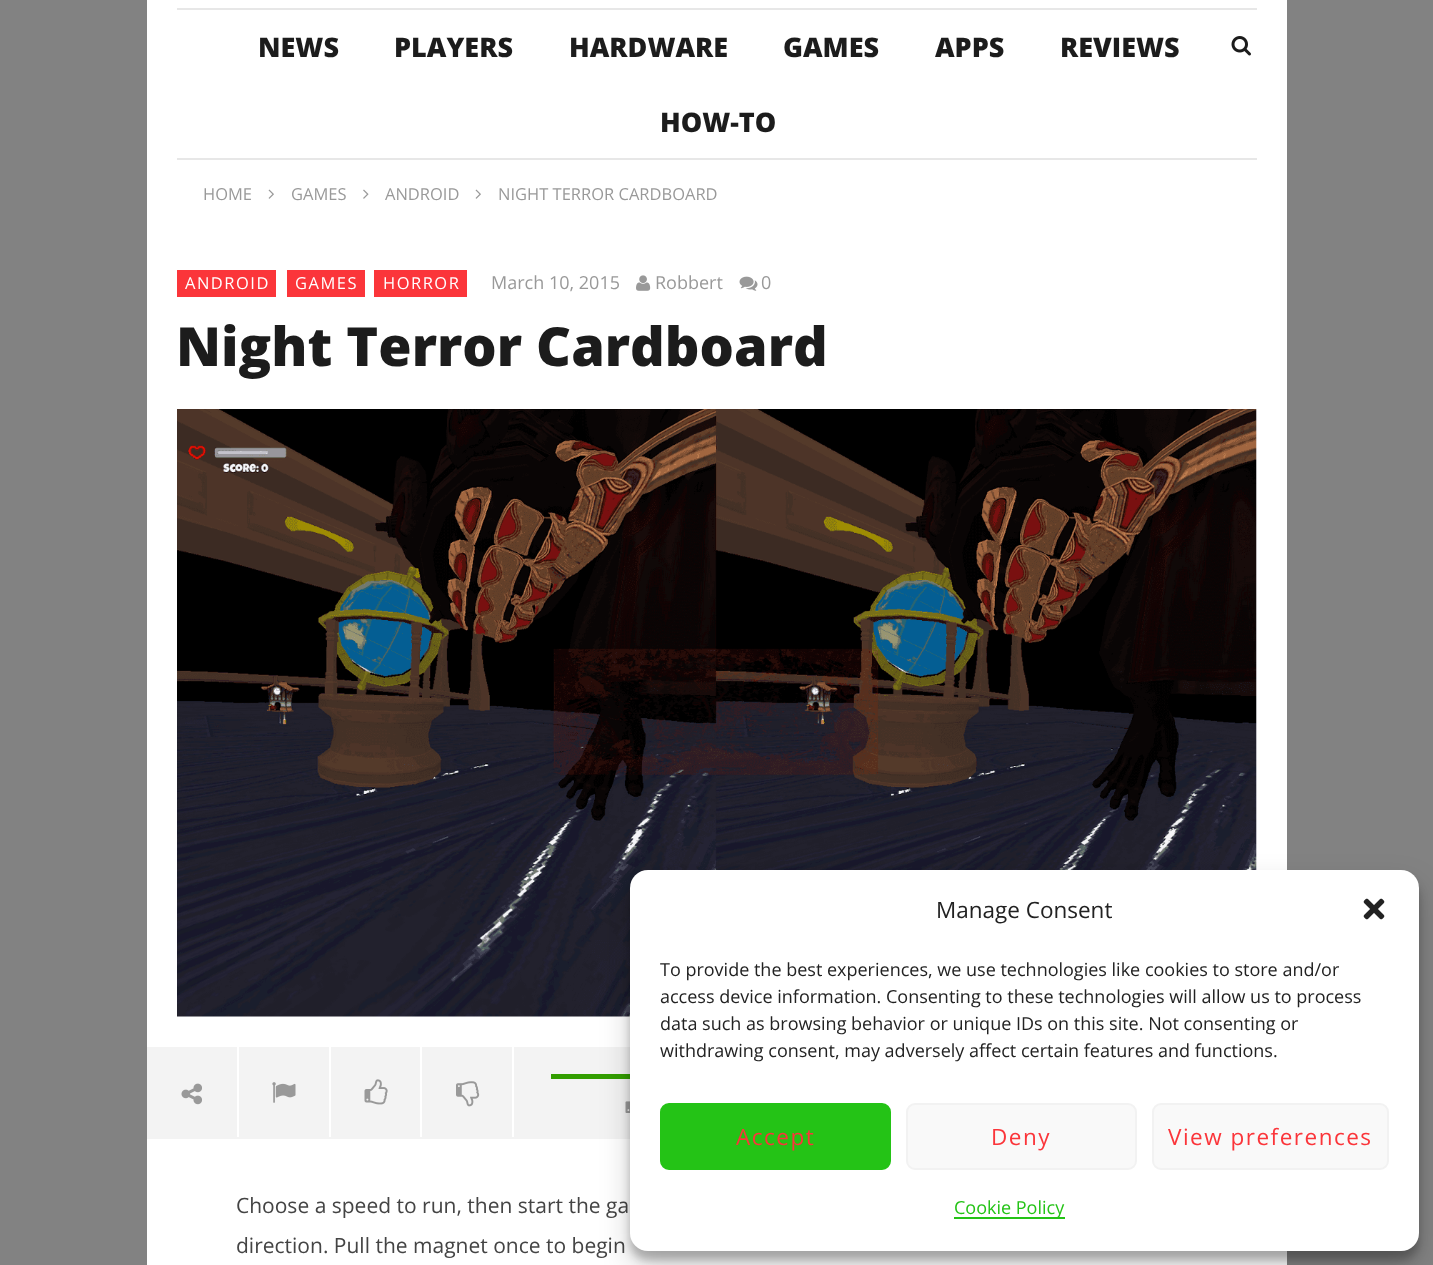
<?xml version="1.0" encoding="UTF-8"?>
<svg xmlns="http://www.w3.org/2000/svg" width="1433" height="1265">
    <defs>
        <filter id="blur1" x="-50%" y="-200%" width="200%" height="500%"><feGaussianBlur stdDeviation="4.5"/></filter>
        <filter id="blur2" x="-50%" y="-200%" width="200%" height="500%"><feGaussianBlur stdDeviation="15"/></filter>
    </defs>
    <rect width="100%" height="100%" fill="#828282"/>
    <rect x="147" y="0" width="1140" height="1265" fill="#FFFFFF"/>
    <rect x="177" y="8" width="1080" height="2" fill="#E7E7E7"/>
    <text x="258" y="57" font-family="Open Sans" font-size="27" font-weight="800" fill="#1C1C1C">NEWS</text>
    <text x="394" y="57" font-family="Open Sans" font-size="27" font-weight="800" fill="#1C1C1C">PLAYERS</text>
    <text x="569" y="57" font-family="Open Sans" font-size="27" font-weight="800" fill="#1C1C1C">HARDWARE</text>
    <text x="783" y="57" font-family="Open Sans" font-size="27" font-weight="800" fill="#1C1C1C">GAMES</text>
    <text x="935" y="57" font-family="Open Sans" font-size="27" font-weight="800" fill="#1C1C1C">APPS</text>
    <text x="1060" y="57" font-family="Open Sans" font-size="27" font-weight="800" fill="#1C1C1C">REVIEWS</text>
    <text x="660" y="132" font-family="Open Sans" font-size="27" font-weight="800" fill="#1C1C1C">HOW-TO</text>
    <image x="1231" y="36" width="20" height="20" href="img_01.png"/>
    <rect x="177" y="158" width="1080" height="2" fill="#E7E7E7"/>
    <text x="203" y="200" font-family="Open Sans" font-size="16.5" fill="#999999">HOME</text>
    <image x="268" y="189" width="6" height="10" href="img_02.png"/>
    <text x="291" y="200" font-family="Open Sans" font-size="16.5" fill="#999999">GAMES</text>
    <image x="363" y="189" width="6" height="10" href="img_03.png"/>
    <text x="385" y="200" font-family="Open Sans" font-size="16.5" fill="#999999">ANDROID</text>
    <image x="475" y="189" width="6" height="10" href="img_02.png"/>
    <text x="498" y="200" font-family="Open Sans" font-size="16.5" fill="#999999">NIGHT TERROR CARDBOARD</text>
    <rect x="177" y="270" width="99" height="27" fill="#FB353A"/>
    <text x="185" y="289" font-family="Open Sans" font-size="16.5" letter-spacing="1.5" fill="#FFFFFF">ANDROID</text>
    <rect x="287" y="270" width="78" height="27" fill="#FB353A"/>
    <text x="295" y="289" font-family="Open Sans" font-size="16.5" letter-spacing="1.5" fill="#FFFFFF">GAMES</text>
    <rect x="374" y="270" width="93" height="27" fill="#FB353A"/>
    <text x="383" y="289" font-family="Open Sans" font-size="16.5" letter-spacing="1.5" fill="#FFFFFF">HORROR</text>
    <text x="491" y="289" font-family="Open Sans" font-size="18" fill="#999999">March 10, 2015</text>
    <image x="636" y="275" width="15" height="16" href="img_04.png"/>
    <text x="655" y="289" font-family="Open Sans" font-size="18" fill="#999999">Robbert</text>
    <image x="739" y="276" width="19" height="15" href="img_05.png"/>
    <text x="761" y="289" font-family="Open Sans" font-size="18" fill="#999999">0</text>
    <text x="176" y="366" font-family="Open Sans" font-size="54" font-weight="800" fill="#1C1C1C">Night Terror Cardboard</text>
    <image x="177" y="409" width="1080" height="608" href="img_06.png"/>
    <rect x="147" y="1047" width="483" height="92" fill="#F3F3F3"/>
    <rect x="237" y="1047" width="2" height="90" fill="#FFFFFF"/>
    <image x="181" y="1083" width="21" height="22" href="img_07.png"/>
    <rect x="329" y="1047" width="2" height="90" fill="#FFFFFF"/>
    <image x="272" y="1082" width="24" height="21" href="img_08.png"/>
    <rect x="420" y="1047" width="2" height="90" fill="#FFFFFF"/>
    <image x="364" y="1079" width="24" height="26" href="img_09.png"/>
    <rect x="512" y="1047" width="2" height="90" fill="#FFFFFF"/>
    <image x="456" y="1081" width="24" height="26" href="img_10.png"/>
    <rect x="551" y="1074" width="79" height="5" fill="#329E00"/>
    <image x="625" y="1101" width="5" height="12" href="img_11.png"/>
    <text font-family="Open Sans" font-size="21" fill="#444444">
        <tspan x="236" y="1213">Choose a speed to run, then start the ga</tspan>
        <tspan x="236" y="1253">direction. Pull the magnet once to begin</tspan>
    </text>
    <rect x="630" y="879" width="789" height="381" rx="18" fill="#000000" fill-opacity="0.23" filter="url(#blur1)"/>
    <rect x="630" y="885" width="789" height="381" rx="18" fill="#000000" fill-opacity="0.19" filter="url(#blur2)"/>
    <rect x="630" y="870" width="789" height="381" rx="18" fill="#FFFFFF"/>
    <text x="936" y="918" font-family="Open Sans" font-size="22.5" fill="#222222">Manage Consent</text>
    <image x="1363" y="898" width="22" height="22" href="img_12.png"/>
    <text font-family="Open Sans" font-size="18" fill="#222222">
        <tspan x="660" y="976">To provide the best experiences, we use technologies like cookies to store and/or</tspan>
        <tspan x="660" y="1003">access device information. Consenting to these technologies will allow us to process</tspan>
        <tspan x="660" y="1030">data such as browsing behavior or unique IDs on this site. Not consenting or</tspan>
        <tspan x="660" y="1057">withdrawing consent, may adversely affect certain features and functions.</tspan>
    </text>
    <rect x="661" y="1104" width="229" height="65" rx="8" fill="#24C316" stroke="#24C316" stroke-width="2"/>
    <text x="736" y="1145" font-family="Open Sans" font-size="22.5" letter-spacing="1.5" fill="#FB353A">Accept</text>
    <rect x="907" y="1104" width="229" height="65" rx="8" fill="#F9F9F9" stroke="#F2F2F2" stroke-width="2"/>
    <text x="991" y="1145" font-family="Open Sans" font-size="22.5" letter-spacing="1.5" fill="#FB353A">Deny</text>
    <rect x="1153" y="1104" width="235" height="65" rx="8" fill="#F9F9F9" stroke="#F2F2F2" stroke-width="2"/>
    <text x="1168" y="1145" font-family="Open Sans" font-size="22.5" letter-spacing="1.5" fill="#FB353A">View preferences</text>
    <rect x="954" y="1217" width="111" height="2" fill="#24C316"/>
    <text x="954" y="1214" font-family="Open Sans" font-size="18" fill="#24C316">Cookie Policy</text>
</svg>
